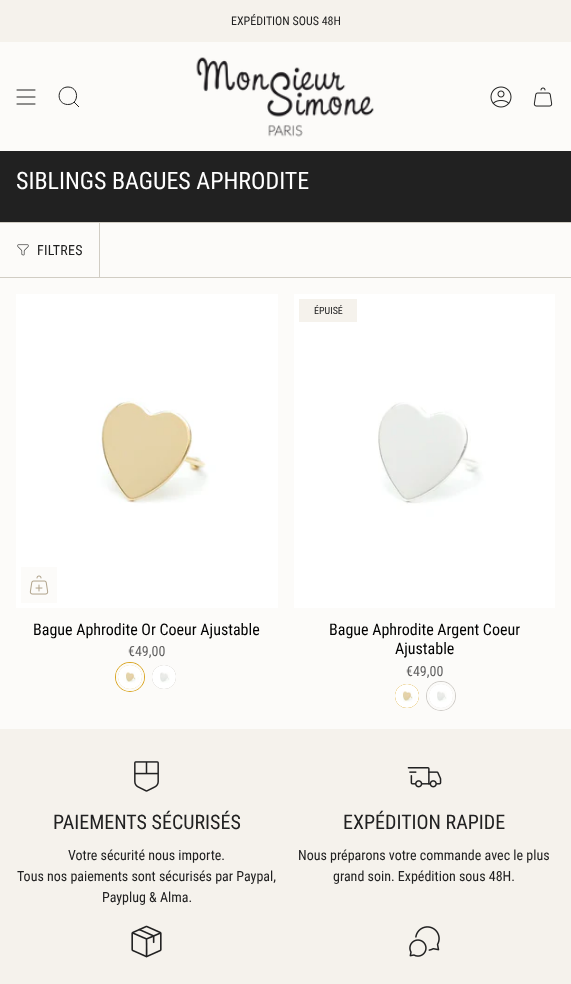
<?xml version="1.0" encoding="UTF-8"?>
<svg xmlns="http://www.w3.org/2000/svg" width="571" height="984">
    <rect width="100%" height="100%" fill="#FCFBF9"/>
    <rect x="0" y="0" width="571" height="42" fill="#F5F2EC"/>
    <text x="231" y="25" font-family="Roboto Condensed" font-size="12" fill="#212121">EXPÉDITION SOUS 48H</text>
    <path d="M 17 90 H 35 M 17 97 H 35 M 17 104 H 35" fill="none" stroke="#212121" stroke-linecap="round" stroke-linejoin="round"/>
    <path d="M 68 87 C 79.5 87 79.5 105 67.5 104.5 C 56 104 56.5 87 68 87 Z M 74 102 L 79 107" fill="none" stroke="#212121"/>
    <image x="196" y="57" width="178" height="80" href="img_01.png"/>
    <image x="490" y="86" width="22" height="22" href="img_02.png"/>
    <image x="533" y="87" width="20" height="20" href="img_03.png"/>
    <rect x="0" y="151" width="571" height="71" fill="#212121"/>
    <text x="16" y="189" font-family="Roboto Condensed" font-size="24" fill="#FFFFFF">SIBLINGS BAGUES APHRODITE</text>
    <rect x="0" y="222" width="571" height="1" fill="#D1CDC4"/>
    <rect x="0" y="277" width="571" height="1" fill="#D1CDC4"/>
    <rect x="99" y="223" width="1" height="54" fill="#D1CDC4"/>
    <image x="17" y="244" width="12" height="12" href="img_04.png"/>
    <text x="37" y="255" font-family="Roboto Condensed" font-size="14" letter-spacing="0.25" fill="#212121">FILTRES</text>
    <image x="16" y="294" width="262" height="314" href="img_05.png"/>
    <rect x="21" y="567" width="36" height="36" fill="#FCFBF9"/>
    <image x="29" y="575" width="20" height="20" href="img_06.png"/>
    <text x="33" y="635" font-family="Roboto Condensed" font-size="16" fill="#000000">Bague Aphrodite Or Coeur Ajustable</text>
    <text x="128" y="656" font-family="Roboto Condensed" font-size="14" fill="#636262">€49,00</text>
    <circle cx="130" cy="677" r="15" fill="#DAA520"/>
    <circle cx="130" cy="677" r="13" fill="none" stroke="#FCFBF9" stroke-width="2"/>
    <circle cx="130" cy="677" r="13" fill="none" stroke="#FCFBF9" stroke-width="2"/>
    <image x="118" y="665" width="24" height="24" href="img_07.png"/>
    <circle cx="164" cy="677" r="12" fill="#CECBC7"/>
    <image x="152" y="665" width="24" height="24" href="img_08.png"/>
    <image x="294" y="294" width="261" height="314" href="img_09.png"/>
    <rect x="299" y="299" width="58" height="23" fill="#F5F2EC"/>
    <text x="314" y="314" font-family="Roboto Condensed" font-size="10" fill="#212121">ÉPUISÉ</text>
    <text x="329" y="635" font-family="Roboto Condensed" font-size="16" fill="#000000">Bague Aphrodite Argent Coeur</text>
    <text x="395" y="654" font-family="Roboto Condensed" font-size="16" fill="#000000">Ajustable</text>
    <text x="406" y="676" font-family="Roboto Condensed" font-size="14" fill="#636262">€49,00</text>
    <circle cx="407" cy="696" r="12" fill="#DAA520"/>
    <image x="395" y="684" width="24" height="24" href="img_10.png"/>
    <circle cx="441" cy="696" r="15" fill="#CECBC7"/>
    <circle cx="441" cy="696" r="13" fill="none" stroke="#FCFBF9" stroke-width="2"/>
    <circle cx="441" cy="696" r="13" fill="none" stroke="#FCFBF9" stroke-width="2"/>
    <image x="429" y="684" width="24" height="24" href="img_11.png"/>
    <rect x="0" y="729" width="571" height="255" fill="#F5F2EC"/>
    <image x="134" y="761" width="25" height="31" href="img_12.png"/>
    <text x="53" y="829" font-family="Roboto Condensed" font-size="20" fill="#212121">PAIEMENTS SÉCURISÉS</text>
    <text x="68" y="860" font-family="Roboto Condensed" font-size="14" fill="#212121">Votre sécurité nous importe.</text>
    <text x="17" y="881" font-family="Roboto Condensed" font-size="14" fill="#212121">Tous nos paiements sont sécurisés par Paypal,</text>
    <text x="102" y="902" font-family="Roboto Condensed" font-size="14" fill="#212121">Payplug &amp; Alma.</text>
    <image x="407" y="767" width="35" height="21" href="img_13.png"/>
    <text x="343" y="829" font-family="Roboto Condensed" font-size="20" fill="#212121">EXPÉDITION RAPIDE</text>
    <text x="298" y="860" font-family="Roboto Condensed" font-size="14" fill="#212121">Nous préparons votre commande avec le plus</text>
    <text x="333" y="881" font-family="Roboto Condensed" font-size="14" fill="#212121">grand soin. Expédition sous 48H.</text>
    <image x="131" y="925" width="31" height="33" href="img_14.png"/>
    <image x="409" y="926" width="31" height="31" href="img_15.png"/>
</svg>
